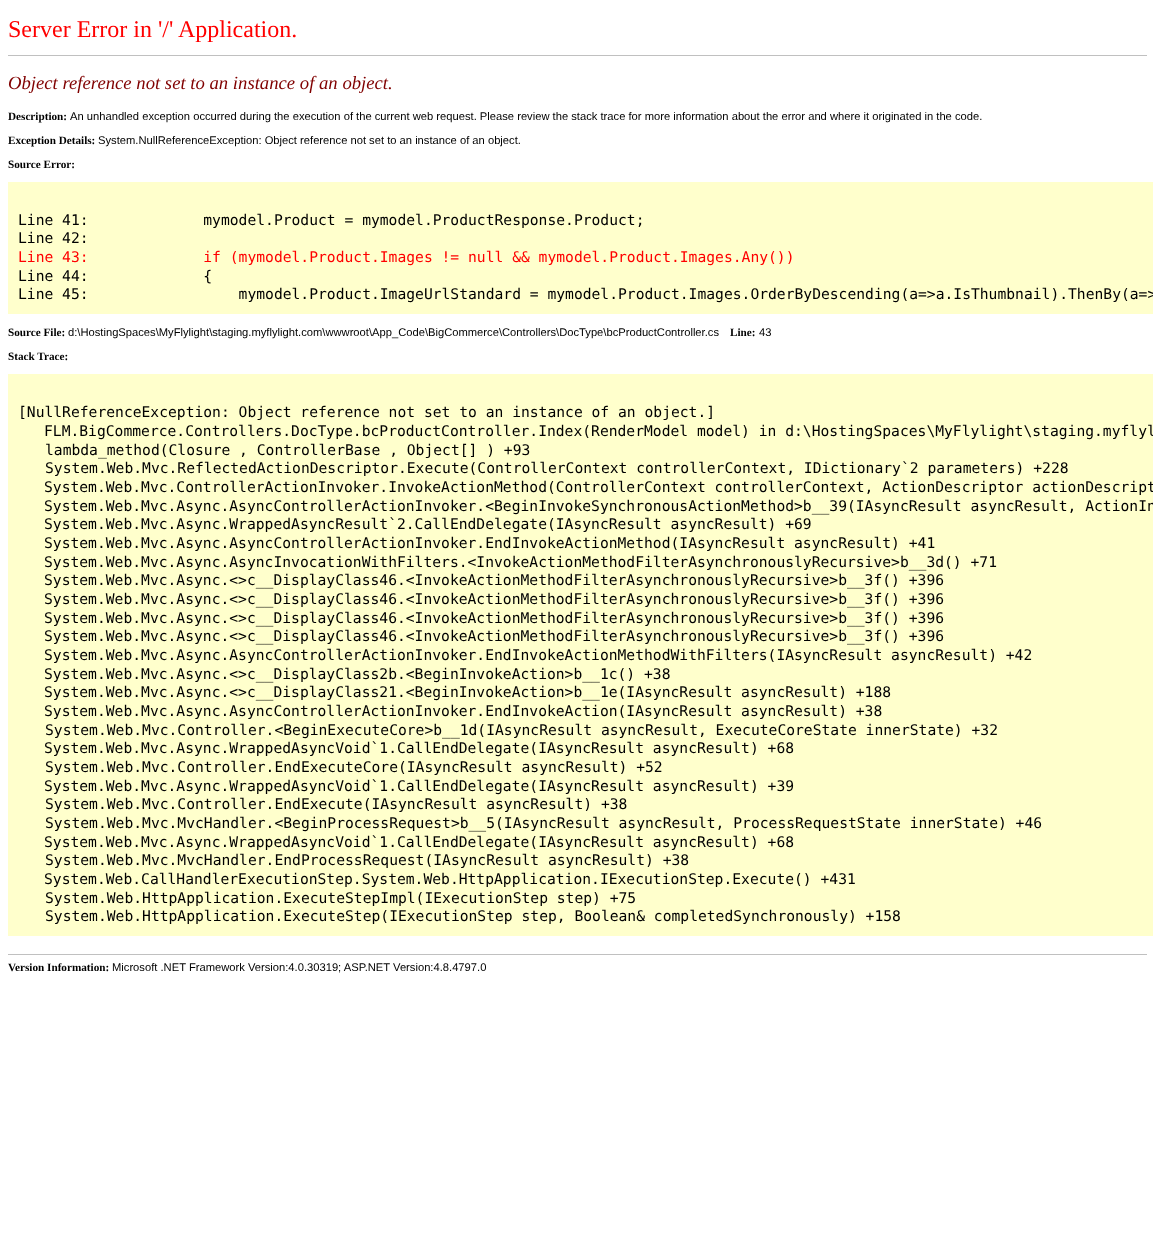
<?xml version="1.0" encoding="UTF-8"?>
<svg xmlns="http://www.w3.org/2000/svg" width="1153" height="1235">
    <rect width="100%" height="100%" fill="#FFFFFF"/>
    <text x="8" y="37" font-family="Liberation Serif" font-size="24" fill="#FF0000">Server Error in '/' Application.</text>
    <rect x="8" y="55" width="1139" height="1" fill="#C0C0C0"/>
    <text x="8" y="89" font-family="Liberation Serif" font-size="18.7" font-style="italic" fill="#800000">Object reference not set to an instance of an object.</text>
    <text x="8" y="120" font-family="Liberation Serif" font-size="11.2" font-weight="700" fill="#000000">Description:</text>
    <text x="70" y="120" font-family="Liberation Sans" font-size="11.2" fill="#000000">An unhandled exception occurred during the execution of the current web request. Please review the stack trace for more information about the error and where it originated in the code.</text>
    <text x="8" y="144" font-family="Liberation Serif" font-size="11.2" font-weight="700" fill="#000000">Exception Details:</text>
    <text x="98" y="144" font-family="Liberation Sans" font-size="11.2" fill="#000000">System.NullReferenceException: Object reference not set to an instance of an object.</text>
    <text x="8" y="168" font-family="Liberation Serif" font-size="11.2" font-weight="700" fill="#000000">Source Error:</text>
    <rect x="8" y="182" width="1145" height="132" fill="#FFFFCC"/>
    <text font-family="DejaVu Sans Mono" font-size="14.67" fill="#000000" xml:space="preserve"><tspan x="18" y="225">Line 41:             mymodel.Product = mymodel.ProductResponse.Product;</tspan><tspan x="18" y="243">Line 42:</tspan></text>
    <text x="18" y="262" font-family="DejaVu Sans Mono" font-size="14.67" fill="#FF0000" xml:space="preserve">Line 43:             if (mymodel.Product.Images != null &amp;&amp; mymodel.Product.Images.Any())</text>
    <text font-family="DejaVu Sans Mono" font-size="14.67" fill="#000000" xml:space="preserve"><tspan x="18" y="281">Line 44:             {</tspan><tspan x="18" y="299">Line 45:                 mymodel.Product.ImageUrlStandard = mymodel.Product.Images.OrderByDescending(a=&gt;a.IsThumbnail).ThenBy(a=&gt;</tspan></text>
    <text x="8" y="336" font-family="Liberation Serif" font-size="11.2" font-weight="700" fill="#000000">Source File:</text>
    <text x="68" y="336" font-family="Liberation Sans" font-size="11.2" fill="#000000">d:\HostingSpaces\MyFlylight\staging.myflylight.com\wwwroot\App_Code\BigCommerce\Controllers\DocType\bcProductController.cs</text>
    <text x="730" y="336" font-family="Liberation Serif" font-size="11.2" font-weight="700" fill="#000000">Line:</text>
    <text x="759" y="336" font-family="Liberation Sans" font-size="11.2" fill="#000000">43</text>
    <text x="8" y="360" font-family="Liberation Serif" font-size="11.2" font-weight="700" fill="#000000">Stack Trace:</text>
    <rect x="8" y="374" width="1145" height="562" fill="#FFFFCC"/>
    <text x="18" y="417" font-family="DejaVu Sans Mono" font-size="14.67" fill="#000000">[NullReferenceException: Object reference not set to an instance of an object.]</text>
    <text x="44" y="436" font-family="DejaVu Sans Mono" font-size="14.67" fill="#000000">FLM.BigCommerce.Controllers.DocType.bcProductController.Index(RenderModel model) in d:\HostingSpaces\MyFlylight\staging.myflyl</text>
    <text font-family="DejaVu Sans Mono" font-size="14.67" fill="#000000">
        <tspan x="45" y="455">lambda_method(Closure , ControllerBase , Object[] ) +93</tspan>
        <tspan x="45" y="473">System.Web.Mvc.ReflectedActionDescriptor.Execute(ControllerContext controllerContext, IDictionary`2 parameters) +228</tspan>
    </text>
    <text font-family="DejaVu Sans Mono" font-size="14.67" fill="#000000">
        <tspan x="44" y="492">System.Web.Mvc.ControllerActionInvoker.InvokeActionMethod(ControllerContext controllerContext, ActionDescriptor actionDescript</tspan>
        <tspan x="44" y="511">System.Web.Mvc.Async.AsyncControllerActionInvoker.&lt;BeginInvokeSynchronousActionMethod&gt;b__39(IAsyncResult asyncResult, ActionIn</tspan>
        <tspan x="44" y="529">System.Web.Mvc.Async.WrappedAsyncResult`2.CallEndDelegate(IAsyncResult asyncResult) +69</tspan>
        <tspan x="44" y="548">System.Web.Mvc.Async.AsyncControllerActionInvoker.EndInvokeActionMethod(IAsyncResult asyncResult) +41</tspan>
        <tspan x="44" y="567">System.Web.Mvc.Async.AsyncInvocationWithFilters.&lt;InvokeActionMethodFilterAsynchronouslyRecursive&gt;b__3d() +71</tspan>
        <tspan x="44" y="585">System.Web.Mvc.Async.&lt;&gt;c__DisplayClass46.&lt;InvokeActionMethodFilterAsynchronouslyRecursive&gt;b__3f() +396</tspan>
        <tspan x="44" y="604">System.Web.Mvc.Async.&lt;&gt;c__DisplayClass46.&lt;InvokeActionMethodFilterAsynchronouslyRecursive&gt;b__3f() +396</tspan>
        <tspan x="44" y="623">System.Web.Mvc.Async.&lt;&gt;c__DisplayClass46.&lt;InvokeActionMethodFilterAsynchronouslyRecursive&gt;b__3f() +396</tspan>
        <tspan x="44" y="641">System.Web.Mvc.Async.&lt;&gt;c__DisplayClass46.&lt;InvokeActionMethodFilterAsynchronouslyRecursive&gt;b__3f() +396</tspan>
        <tspan x="44" y="660">System.Web.Mvc.Async.AsyncControllerActionInvoker.EndInvokeActionMethodWithFilters(IAsyncResult asyncResult) +42</tspan>
        <tspan x="44" y="679">System.Web.Mvc.Async.&lt;&gt;c__DisplayClass2b.&lt;BeginInvokeAction&gt;b__1c() +38</tspan>
        <tspan x="44" y="697">System.Web.Mvc.Async.&lt;&gt;c__DisplayClass21.&lt;BeginInvokeAction&gt;b__1e(IAsyncResult asyncResult) +188</tspan>
        <tspan x="44" y="716">System.Web.Mvc.Async.AsyncControllerActionInvoker.EndInvokeAction(IAsyncResult asyncResult) +38</tspan>
    </text>
    <text x="45" y="735" font-family="DejaVu Sans Mono" font-size="14.67" fill="#000000">System.Web.Mvc.Controller.&lt;BeginExecuteCore&gt;b__1d(IAsyncResult asyncResult, ExecuteCoreState innerState) +32</text>
    <text x="44" y="753" font-family="DejaVu Sans Mono" font-size="14.67" fill="#000000">System.Web.Mvc.Async.WrappedAsyncVoid`1.CallEndDelegate(IAsyncResult asyncResult) +68</text>
    <text x="45" y="772" font-family="DejaVu Sans Mono" font-size="14.67" fill="#000000">System.Web.Mvc.Controller.EndExecuteCore(IAsyncResult asyncResult) +52</text>
    <text x="44" y="791" font-family="DejaVu Sans Mono" font-size="14.67" fill="#000000">System.Web.Mvc.Async.WrappedAsyncVoid`1.CallEndDelegate(IAsyncResult asyncResult) +39</text>
    <text font-family="DejaVu Sans Mono" font-size="14.67" fill="#000000">
        <tspan x="45" y="809">System.Web.Mvc.Controller.EndExecute(IAsyncResult asyncResult) +38</tspan>
        <tspan x="45" y="828">System.Web.Mvc.MvcHandler.&lt;BeginProcessRequest&gt;b__5(IAsyncResult asyncResult, ProcessRequestState innerState) +46</tspan>
    </text>
    <text x="44" y="847" font-family="DejaVu Sans Mono" font-size="14.67" fill="#000000">System.Web.Mvc.Async.WrappedAsyncVoid`1.CallEndDelegate(IAsyncResult asyncResult) +68</text>
    <text x="45" y="865" font-family="DejaVu Sans Mono" font-size="14.67" fill="#000000">System.Web.Mvc.MvcHandler.EndProcessRequest(IAsyncResult asyncResult) +38</text>
    <text x="44" y="884" font-family="DejaVu Sans Mono" font-size="14.67" fill="#000000">System.Web.CallHandlerExecutionStep.System.Web.HttpApplication.IExecutionStep.Execute() +431</text>
    <text font-family="DejaVu Sans Mono" font-size="14.67" fill="#000000">
        <tspan x="45" y="903">System.Web.HttpApplication.ExecuteStepImpl(IExecutionStep step) +75</tspan>
        <tspan x="45" y="921">System.Web.HttpApplication.ExecuteStep(IExecutionStep step, Boolean&amp; completedSynchronously) +158</tspan>
    </text>
    <rect x="8" y="954" width="1139" height="1" fill="#C0C0C0"/>
    <text x="8" y="971" font-family="Liberation Serif" font-size="11.2" font-weight="700" fill="#000000">Version Information:</text>
    <text x="112" y="971" font-family="Liberation Sans" font-size="11.2" fill="#000000">Microsoft .NET Framework Version:4.0.30319; ASP.NET Version:4.8.4797.0</text>
</svg>
